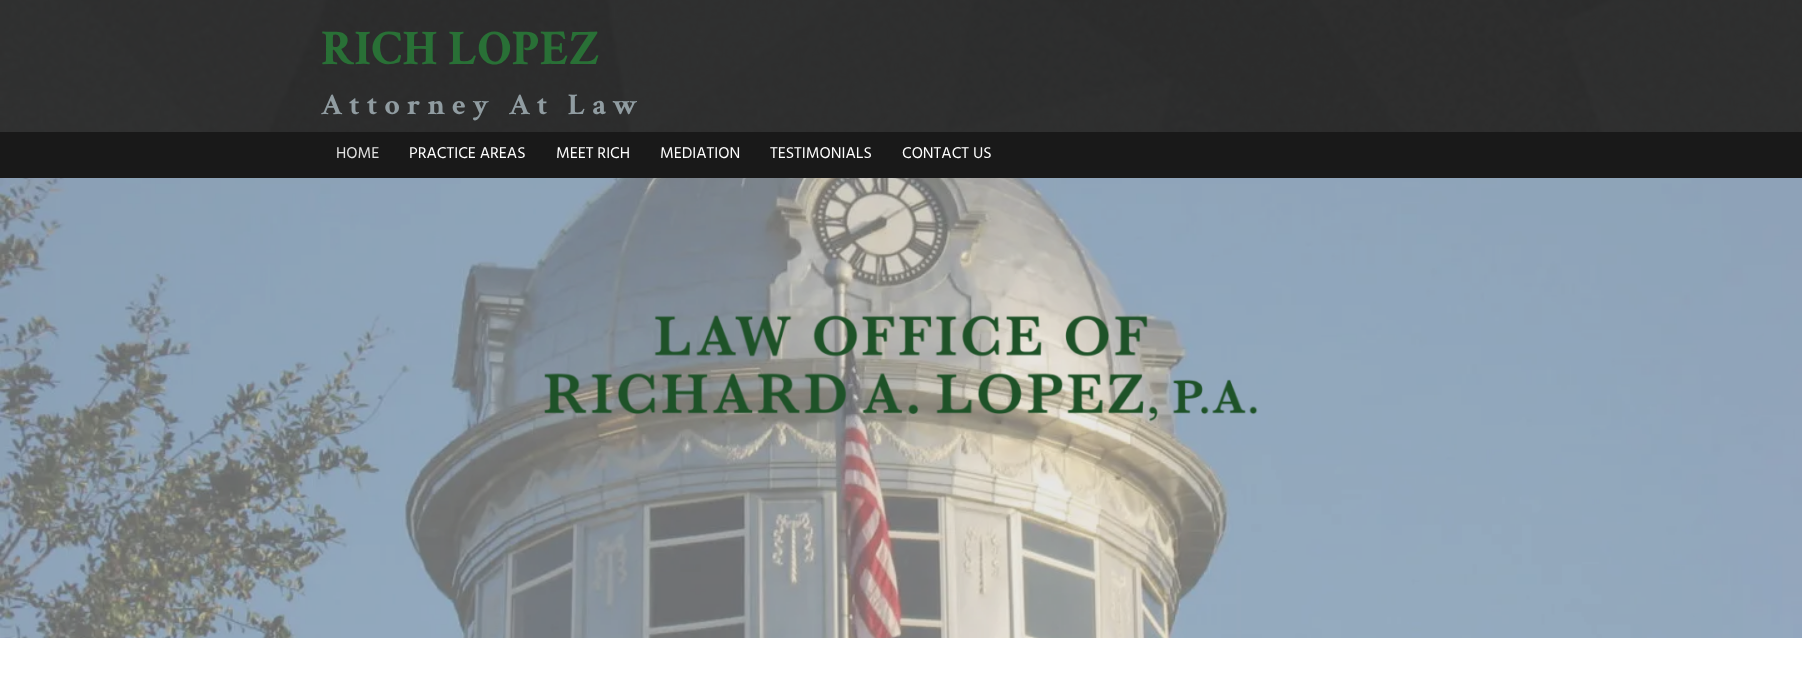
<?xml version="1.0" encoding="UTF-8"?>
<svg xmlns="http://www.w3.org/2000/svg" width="1802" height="693">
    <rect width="100%" height="100%" fill="#FFFFFF"/>
    <rect x="0" y="0" width="1802" height="132" fill="#1E1E1E"/>
    <image x="0" y="0" width="1802" height="132" href="img_01.png"/>
    <rect x="0" y="0" width="1802" height="132" fill="#1E1E1E" fill-opacity="0.68"/>
    <text x="321" y="64" font-family="Crimson Text" font-size="50" font-weight="700" fill="#297036">RICH LOPEZ</text>
    <text x="321" y="114" font-family="Crimson Text" font-size="30" font-weight="700" letter-spacing="7" fill="#909CA1">Attorney At Law</text>
    <rect x="0" y="132" width="1802" height="46" fill="#191919"/>
    <text x="336" y="158" font-family="Hind" font-size="16" fill="#E2E2E2">HOME</text>
    <text x="409" y="158" font-family="Hind" font-size="16" fill="#FFFFFF">PRACTICE AREAS</text>
    <text x="556" y="158" font-family="Hind" font-size="16" fill="#FFFFFF">MEET RICH</text>
    <text x="660" y="158" font-family="Hind" font-size="16" fill="#FFFFFF">MEDIATION</text>
    <text x="770" y="158" font-family="Hind" font-size="16" fill="#FFFFFF">TESTIMONIALS</text>
    <text x="902" y="158" font-family="Hind" font-size="16" fill="#FFFFFF">CONTACT US</text>
    <image x="0" y="178" width="1802" height="460" href="img_02.png"/>
    <image x="544" y="315" width="714" height="107" href="img_03.png"/>
</svg>
